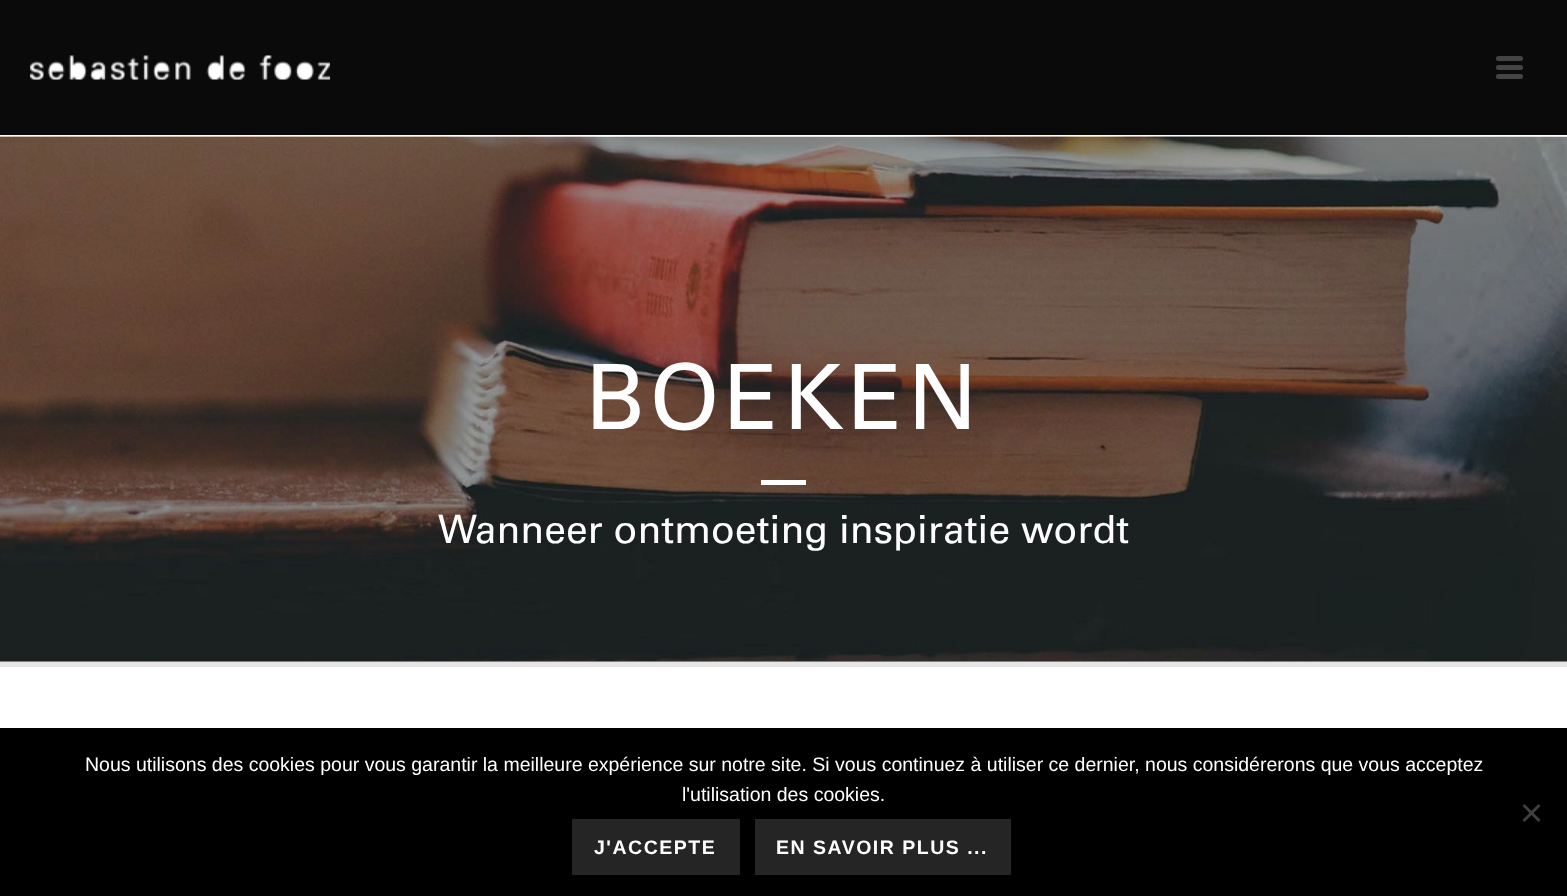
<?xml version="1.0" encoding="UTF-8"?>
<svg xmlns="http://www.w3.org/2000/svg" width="1567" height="896">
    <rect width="100%" height="100%" fill="#FFFFFF"/>
    <rect x="0" y="661" width="1567" height="1" fill="#9D9D9D"/>
    <rect x="0" y="0" width="1567" height="135" fill="#0A0A0A"/>
    <image x="30" y="55" width="300" height="25" href="img_01.png"/>
    <rect x="1496" y="56" width="27" height="5" rx="2.5" fill="#444444"/>
    <rect x="1496" y="65" width="27" height="5" rx="2.5" fill="#444444"/>
    <rect x="1496" y="74" width="27" height="5" rx="2.5" fill="#444444"/>
    <image x="0" y="136" width="1567" height="526" href="img_02.png"/>
    <text x="585" y="429" font-family="Univers" font-size="90" letter-spacing="4.5" fill="#FFFFFF">BOEKEN</text>
    <rect x="761" y="480" width="45" height="5" fill="#FFFFFF"/>
    <text x="438" y="543" font-family="Univers" font-size="39" fill="#FFFFFF">Wanneer ontmoeting inspiratie wordt</text>
    <rect x="0" y="662" width="1567" height="5" fill="#E6E6E6"/>
    <rect x="0" y="728" width="1567" height="168" fill="#000000"/>
    <text x="85" y="771" font-family="Liberation Sans" font-size="19.5" fill="#FFFFFF">Nous utilisons des cookies pour vous garantir la meilleure expérience sur notre site. Si vous continuez à utiliser ce dernier, nous considérerons que vous acceptez</text>
    <text x="682" y="801" font-family="Liberation Sans" font-size="19.5" fill="#FFFFFF">l'utilisation des cookies.</text>
    <path d="M 1538.5 804 L 1540.5 806 L 1524.5 822 L 1522.5 820 Z" fill="#404040"/>
    <path d="M 1522.5 806 L 1524.5 804 L 1540.5 820 L 1538.5 822 Z" fill="#404040"/>
    <rect x="572" y="819" width="168" height="56" fill="#252525"/>
    <text x="594" y="854" font-family="Liberation Sans" font-size="19.5" font-weight="700" letter-spacing="1.5" fill="#FFFFFF">J'ACCEPTE</text>
    <rect x="755" y="819" width="256" height="56" fill="#252525"/>
    <text x="776" y="854" font-family="Liberation Sans" font-size="19.5" font-weight="700" letter-spacing="1.5" fill="#FFFFFF">EN SAVOIR PLUS ...</text>
</svg>
